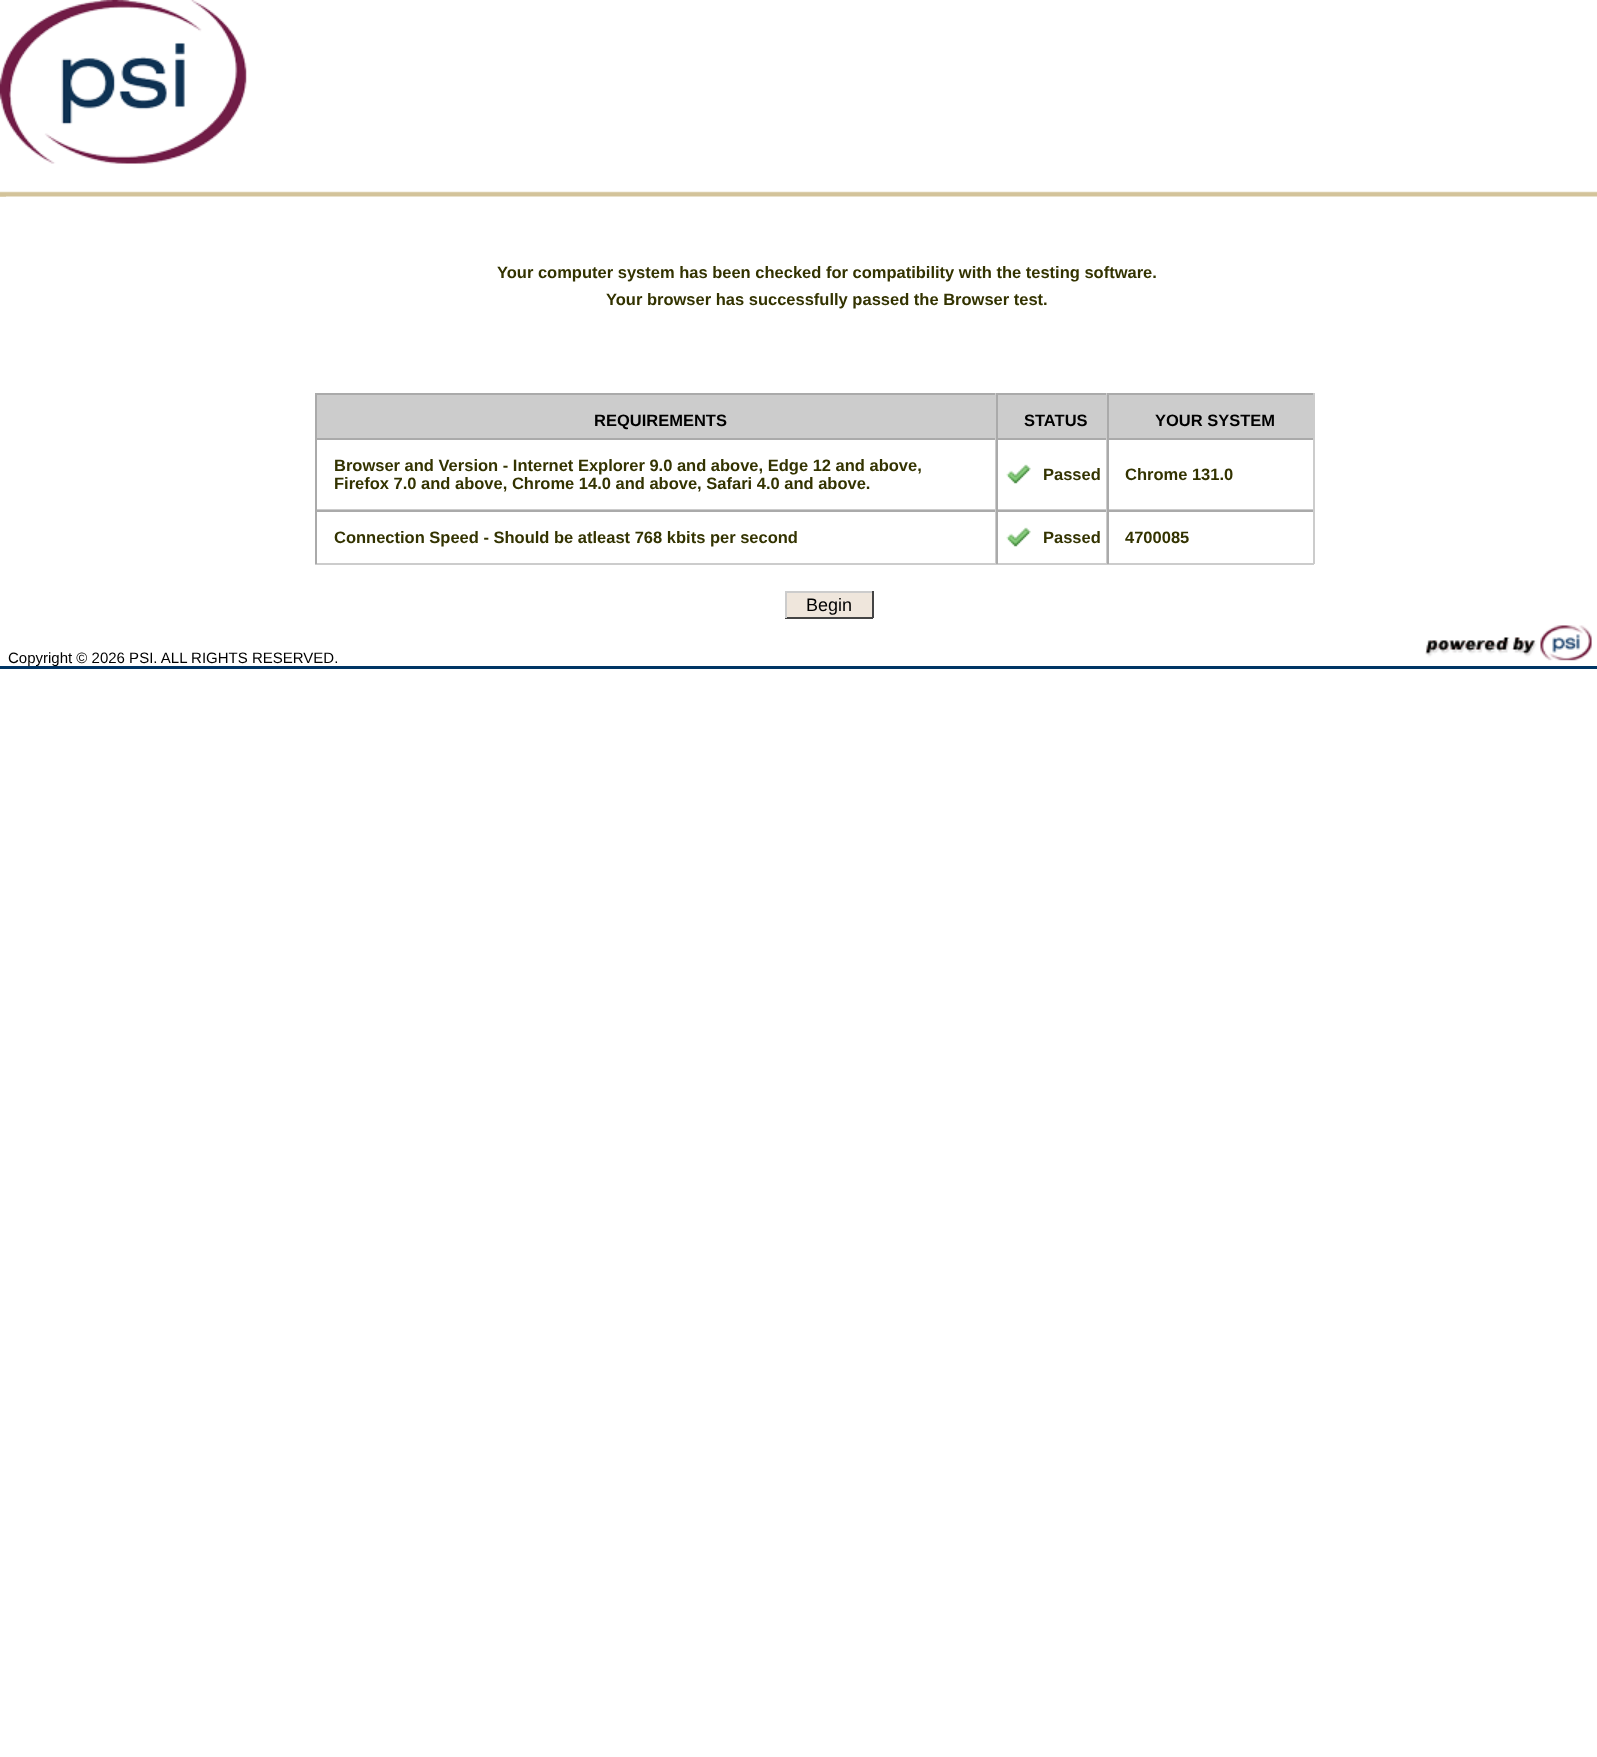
<?xml version="1.0" encoding="UTF-8"?>
<svg xmlns="http://www.w3.org/2000/svg" width="1597" height="1757">
    <rect width="100%" height="100%" fill="#FFFFFF"/>
    <image x="0" y="0" width="247" height="164" href="img_01.png"/>
    <image x="0" y="191" width="1597" height="6" href="img_02.png"/>
    <rect x="0" y="196" width="6" height="1" fill="#DED2B2"/>
    <text x="497" y="278" font-family="Liberation Sans" font-size="16.5" font-weight="700" fill="#333300">Your computer system has been checked for compatibility with the testing software.</text>
    <text x="606" y="305" font-family="Liberation Sans" font-size="16.5" font-weight="700" fill="#333300">Your browser has successfully passed the Browser test.</text>
    <rect x="317" y="395" width="678" height="42" fill="#CCCCCC"/>
    <rect x="315" y="393" width="999" height="2" fill="#AAAAAA"/>
    <rect x="995" y="393" width="1" height="45" fill="#CCCCCC"/>
    <rect x="315" y="437" width="681" height="1" fill="#CCCCCC"/>
    <rect x="315" y="393" width="2" height="45" fill="#AAAAAA"/>
    <text x="594" y="426" font-family="Liberation Sans" font-size="16.5" font-weight="700" fill="#000000">REQUIREMENTS</text>
    <rect x="998" y="395" width="108" height="42" fill="#CCCCCC"/>
    <rect x="1106" y="393" width="1" height="45" fill="#CCCCCC"/>
    <rect x="996" y="437" width="111" height="1" fill="#CCCCCC"/>
    <rect x="996" y="393" width="2" height="45" fill="#AAAAAA"/>
    <text x="1024" y="426" font-family="Liberation Sans" font-size="16.5" font-weight="700" fill="#000000">STATUS</text>
    <rect x="1109" y="395" width="204" height="42" fill="#CCCCCC"/>
    <rect x="1313" y="393" width="2" height="45" fill="#CCCCCC"/>
    <rect x="1107" y="437" width="207" height="1" fill="#CCCCCC"/>
    <rect x="1107" y="393" width="2" height="45" fill="#AAAAAA"/>
    <text x="1155" y="426" font-family="Liberation Sans" font-size="16.5" font-weight="700" fill="#000000">YOUR SYSTEM</text>
    <rect x="315" y="438" width="999" height="2" fill="#AAAAAA"/>
    <rect x="995" y="438" width="1" height="72" fill="#CCCCCC"/>
    <rect x="315" y="509" width="681" height="1" fill="#CCCCCC"/>
    <rect x="315" y="438" width="2" height="72" fill="#AAAAAA"/>
    <text font-family="Liberation Sans" font-size="16.5" font-weight="700" fill="#333300">
        <tspan x="334" y="471">Browser and Version - Internet Explorer 9.0 and above, Edge 12 and above,</tspan>
        <tspan x="334" y="489">Firefox 7.0 and above, Chrome 14.0 and above, Safari 4.0 and above.</tspan>
    </text>
    <image x="1006" y="464" width="25" height="20" href="img_03.png"/>
    <rect x="1106" y="438" width="1" height="72" fill="#CCCCCC"/>
    <rect x="996" y="509" width="111" height="1" fill="#CCCCCC"/>
    <rect x="996" y="438" width="2" height="72" fill="#AAAAAA"/>
    <text x="1043" y="480" font-family="Liberation Sans" font-size="16.5" font-weight="700" fill="#333300">Passed</text>
    <rect x="1313" y="438" width="2" height="72" fill="#CCCCCC"/>
    <rect x="1107" y="509" width="207" height="1" fill="#CCCCCC"/>
    <rect x="1107" y="438" width="2" height="72" fill="#AAAAAA"/>
    <text x="1125" y="480" font-family="Liberation Sans" font-size="16.5" font-weight="700" fill="#333300">Chrome 131.0</text>
    <rect x="315" y="510" width="999" height="2" fill="#AAAAAA"/>
    <rect x="995" y="510" width="1" height="54" fill="#CCCCCC"/>
    <rect x="315" y="563" width="681" height="2" fill="#CCCCCC"/>
    <rect x="315" y="510" width="2" height="54" fill="#AAAAAA"/>
    <text x="334" y="543" font-family="Liberation Sans" font-size="16.5" font-weight="700" fill="#333300">Connection Speed - Should be atleast 768 kbits per second</text>
    <image x="1006" y="527" width="25" height="20" href="img_03.png"/>
    <rect x="1106" y="510" width="1" height="54" fill="#CCCCCC"/>
    <rect x="996" y="563" width="111" height="2" fill="#CCCCCC"/>
    <rect x="996" y="510" width="2" height="54" fill="#AAAAAA"/>
    <text x="1043" y="543" font-family="Liberation Sans" font-size="16.5" font-weight="700" fill="#333300">Passed</text>
    <rect x="1313" y="510" width="2" height="54" fill="#CCCCCC"/>
    <rect x="1107" y="563" width="207" height="2" fill="#CCCCCC"/>
    <rect x="1107" y="510" width="2" height="54" fill="#AAAAAA"/>
    <text x="1125" y="543" font-family="Liberation Sans" font-size="16.5" font-weight="700" fill="#333300">4700085</text>
    <rect x="787" y="593" width="85" height="24" fill="#EFE6DC"/>
    <rect x="785" y="591" width="88" height="2" fill="#CCCCCC"/>
    <rect x="872" y="591" width="2" height="27" fill="#444444"/>
    <rect x="785" y="617" width="88" height="2" fill="#444444"/>
    <rect x="785" y="591" width="2" height="27" fill="#CCCCCC"/>
    <text x="806" y="611" font-family="Liberation Sans" font-size="18" fill="#000000">Begin</text>
    <rect x="0" y="666" width="1597" height="3" fill="#003565"/>
    <text x="8" y="663" font-family="Liberation Sans" font-size="15" fill="#000000">Copyright © 2026 PSI. ALL RIGHTS RESERVED.</text>
    <image x="1425" y="625" width="167" height="36" href="img_04.png"/>
</svg>
